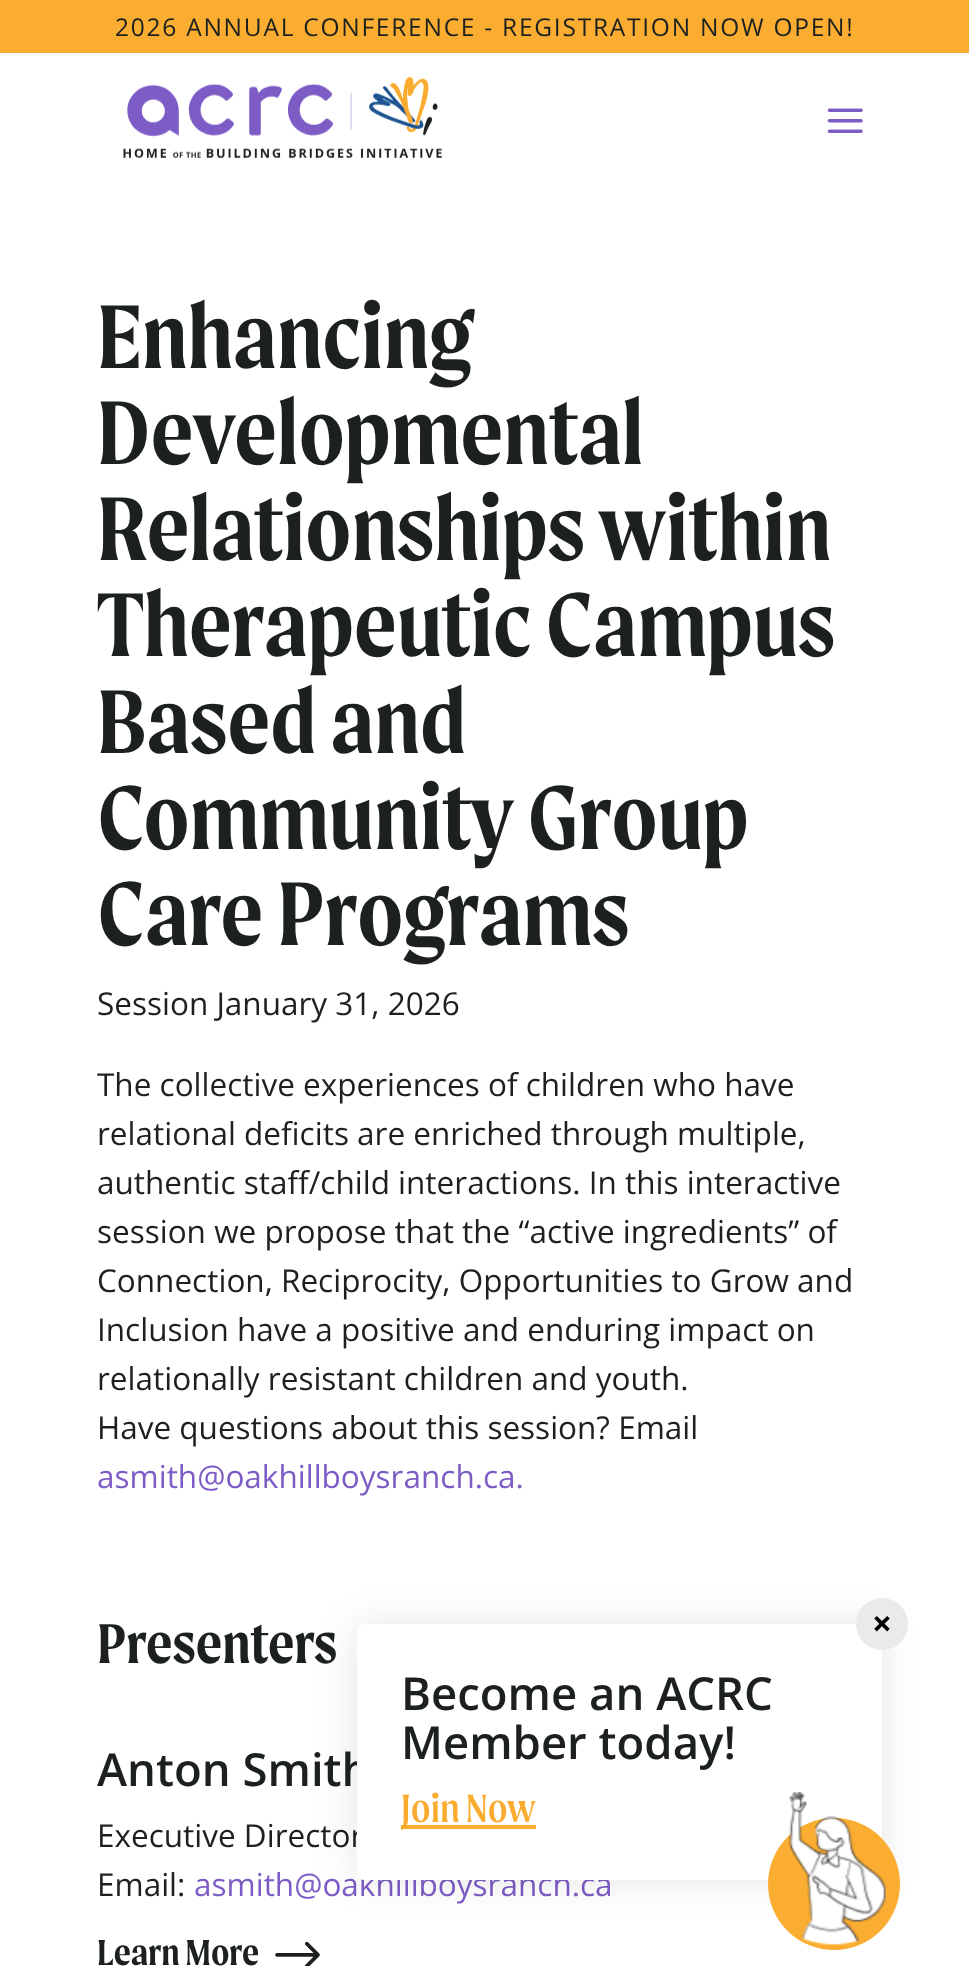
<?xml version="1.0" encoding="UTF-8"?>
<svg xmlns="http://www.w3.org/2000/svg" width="969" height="1966">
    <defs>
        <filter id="blur1" x="-50%" y="-200%" width="200%" height="500%"><feGaussianBlur stdDeviation="20"/></filter>
    </defs>
    <rect width="100%" height="100%" fill="#FFFFFF"/>
    <rect x="0" y="0" width="969" height="53" fill="#FAAD31"/>
    <text x="115" y="36" font-family="Open Sans" font-size="24.5" letter-spacing="1.75" fill="#1C2120">2026 ANNUAL CONFERENCE - REGISTRATION NOW OPEN!</text>
    <image x="123" y="76" width="319" height="82" href="img_01.png"/>
    <image x="827" y="108" width="36" height="25" href="img_02.png"/>
    <text font-family="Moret" font-size="96.25" font-weight="600" fill="#1C2120">
        <tspan x="97" y="368">Enhancing</tspan>
        <tspan x="97" y="464">Developmental</tspan>
        <tspan x="97" y="560">Relationships within</tspan>
        <tspan x="97" y="656">Therapeutic Campus</tspan>
        <tspan x="97" y="753">Based and</tspan>
        <tspan x="97" y="849">Community Group</tspan>
        <tspan x="97" y="945">Care Programs</tspan>
    </text>
    <text x="97" y="1015" font-family="Open Sans" font-size="31.5" fill="#1C2120">Session January 31, 2026</text>
    <text font-family="Open Sans" font-size="31.5" fill="#1C2120">
        <tspan x="97" y="1096">The collective experiences of children who have</tspan>
        <tspan x="97" y="1145">relational deﬁcits are enriched through multiple,</tspan>
        <tspan x="97" y="1194">authentic staff/child interactions. In this interactive</tspan>
        <tspan x="97" y="1243">session we propose that the “active ingredients” of</tspan>
        <tspan x="97" y="1292">Connection, Reciprocity, Opportunities to Grow and</tspan>
        <tspan x="97" y="1341">Inclusion have a positive and enduring impact on</tspan>
        <tspan x="97" y="1390">relationally resistant children and youth.</tspan>
        <tspan x="97" y="1439">Have questions about this session? Email</tspan>
    </text>
    <text x="97" y="1488" font-family="Open Sans" font-size="31.5" fill="#7D5CC6">asmith@oakhillboysranch.ca.</text>
    <text x="97" y="1663" font-family="Moret" font-size="59.5" font-weight="600" fill="#1C2120">Presenters</text>
    <text x="97" y="1786" font-family="Open Sans" font-size="45.5" font-weight="600" fill="#1C2120">Anton Smith</text>
    <text font-family="Open Sans" font-size="31.5" fill="#1C2120">
        <tspan x="97" y="1847">Executive Director</tspan>
        <tspan x="97" y="1896">Email:</tspan>
    </text>
    <text x="194" y="1896" font-family="Open Sans" font-size="31.5" fill="#7D5CC6">asmith@oakhillboysranch.ca</text>
    <text x="97" y="1965" font-family="Moret" font-size="38.5" font-weight="600" fill="#1C2120">Learn More</text>
    <image x="275" y="1941" width="45" height="25" href="img_03.png"/>
    <rect x="357" y="1624" width="525" height="256" rx="7" fill="#020202" fill-opacity="0.1" filter="url(#blur1)"/>
    <rect x="357" y="1624" width="525" height="256" rx="7" fill="#FFFFFF"/>
    <circle cx="882" cy="1624" r="26" fill="#EAEAEA"/>
    <text x="872" y="1636" font-family="Open Sans" font-size="35" font-weight="700" fill="#000000">×</text>
    <text font-family="Open Sans" font-size="45.5" font-weight="600" fill="#1C2120">
        <tspan x="401" y="1710">Become an ACRC</tspan>
        <tspan x="401" y="1759">Member today!</tspan>
    </text>
    <rect x="401" y="1825" width="135" height="4" fill="#FAAC30"/>
    <text x="401" y="1822" font-family="Moret" font-size="42" fill="#FAAC30">Join Now</text>
    <circle cx="834" cy="1884" r="66" fill="#FAAD31"/>
    <image x="789" y="1792" width="97" height="153" href="img_04.png"/>
</svg>
